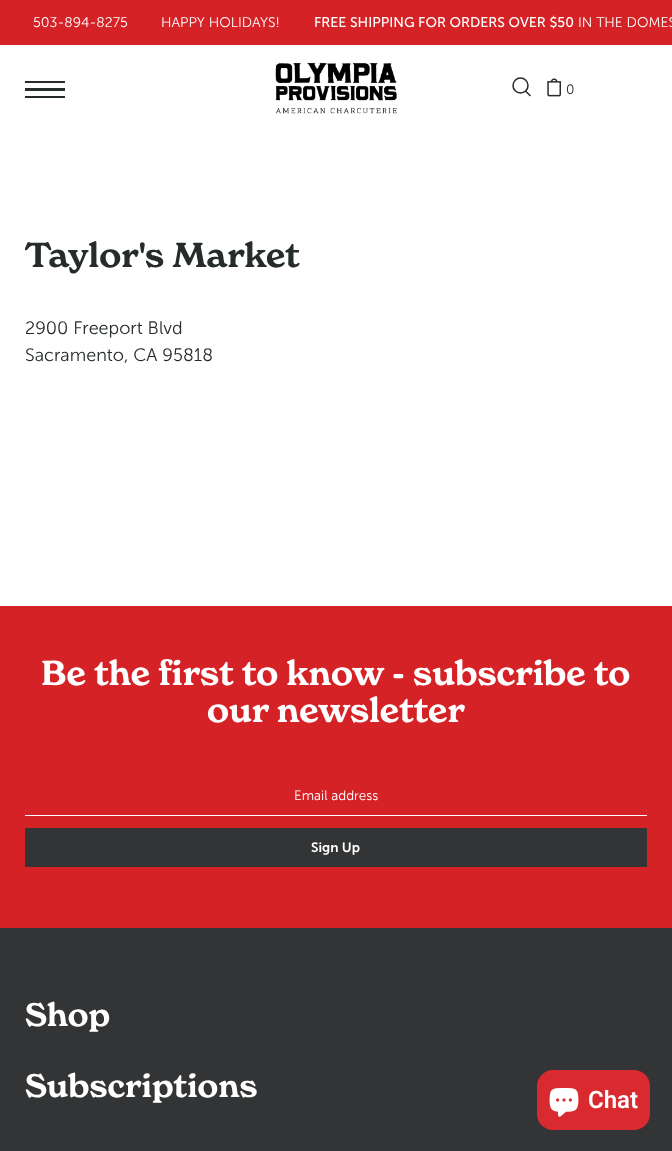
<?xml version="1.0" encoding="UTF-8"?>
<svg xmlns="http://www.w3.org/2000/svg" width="672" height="1151">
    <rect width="100%" height="100%" fill="#FFFFFF"/>
    <rect x="0" y="0" width="672" height="45" fill="#D52226"/>
    <text x="33" y="27" font-family="'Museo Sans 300'" font-size="14" font-weight="300" fill="#FFFFFF">503-894-8275</text>
    <text x="161" y="27" font-family="'Museo Sans 300'" font-size="14" font-weight="300" fill="#FFFFFF">HAPPY HOLIDAYS!</text>
    <text x="314" y="27" font-family="'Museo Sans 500'" font-size="14" fill="#FFFFFF">FREE SHIPPING FOR ORDERS OVER $50</text>
    <text x="578" y="27" font-family="'Museo Sans 300'" font-size="14" font-weight="300" fill="#FFFFFF">IN THE DOMES</text>
    <rect x="25" y="81" width="40" height="2" fill="#262B2C"/>
    <rect x="25" y="88" width="40" height="3" fill="#262B2C"/>
    <rect x="25" y="96" width="40" height="2" fill="#262B2C"/>
    <image x="275" y="62" width="122" height="52" href="img_01.png"/>
    <circle cx="520.5" cy="85.5" r="7.5" fill="none" stroke="#262B2C" stroke-width="1.5"/>
    <path d="M 525.5 91 L 530.5 96 Z" fill="none" stroke="#262B2C" stroke-width="1.5" stroke-linecap="square"/>
    <image x="547" y="78" width="14" height="19" href="img_02.png"/>
    <text x="566" y="94" font-family="'Museo Sans 300'" font-size="13.5" font-weight="300" fill="#262B2C">0</text>
    <text x="25" y="267" font-family="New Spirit" font-size="34" font-weight="600" fill="#262B2C">Taylor's Market</text>
    <text font-family="'Museo Sans 300'" font-size="18" font-weight="300" fill="#262B2C">
        <tspan x="25" y="334">2900 Freeport Blvd</tspan>
        <tspan x="25" y="361">Sacramento, CA 95818</tspan>
    </text>
    <rect x="0" y="606" width="672" height="322" fill="#D52226"/>
    <text x="41" y="685" font-family="New Spirit" font-size="34" font-weight="600" fill="#FFFFFF">Be the first to know - subscribe to</text>
    <text x="207" y="722" font-family="New Spirit" font-size="34" font-weight="600" fill="#FFFFFF">our newsletter</text>
    <rect x="25" y="815" width="622" height="1" fill="#FFFFFF"/>
    <text x="294" y="800" font-family="'Museo Sans 300'" font-size="13.5" font-weight="300" fill="#FFFFFF">Email address</text>
    <rect x="25" y="828" width="622" height="39" fill="#333435"/>
    <text x="311" y="852" font-family="'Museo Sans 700'" font-size="13.5" font-weight="600" fill="#FFFFFF">Sign Up</text>
    <rect x="0" y="928" width="672" height="223" fill="#333435"/>
    <text x="25" y="1026" font-family="New Spirit" font-size="32" font-weight="600" fill="#FFFFFF">Shop</text>
    <text x="25" y="1097" font-family="New Spirit" font-size="32" font-weight="600" fill="#FFFFFF">Subscriptions</text>
    <rect x="537" y="1070" width="113" height="60" rx="16" fill="#D92B2F"/>
    <image x="549" y="1088" width="30" height="29" href="img_03.png"/>
    <text x="588" y="1108" font-family="Roboto" font-size="24" font-weight="600" fill="#FFFFFF">Chat</text>
</svg>
